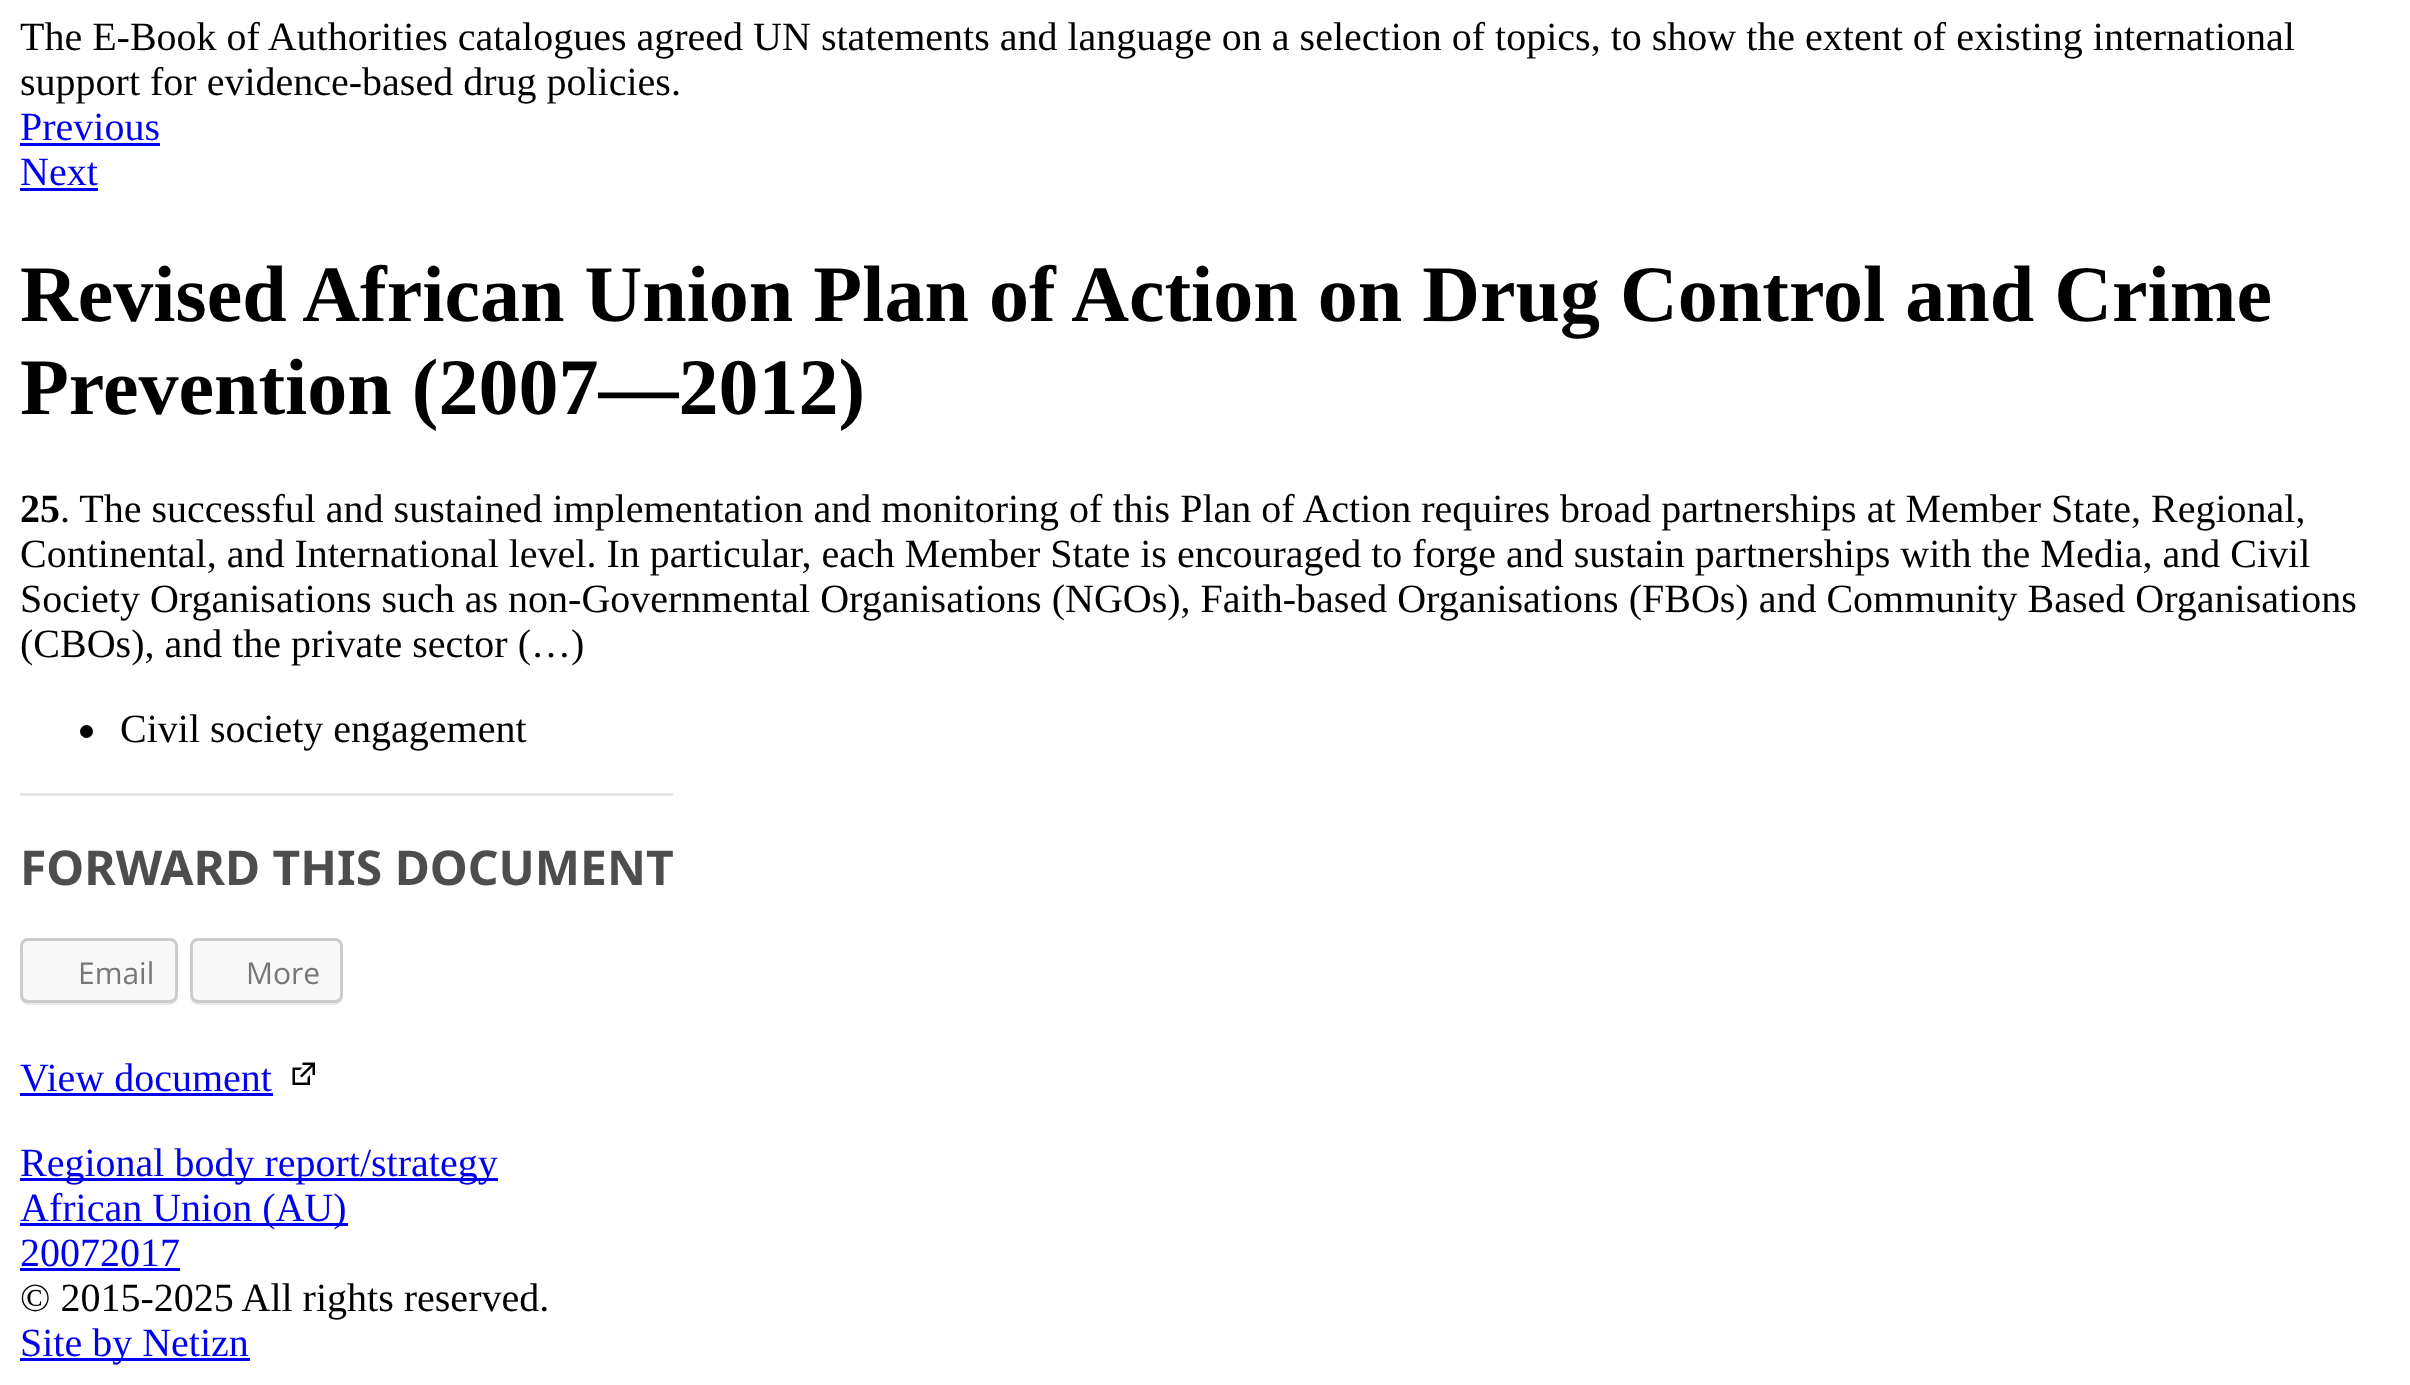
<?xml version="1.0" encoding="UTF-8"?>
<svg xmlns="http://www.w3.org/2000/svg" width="2410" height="1385">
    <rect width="100%" height="100%" fill="#FFFFFF"/>
    <text font-family="Liberation Serif" font-size="40" fill="#000000">
        <tspan x="20" y="50">The E-Book of Authorities catalogues agreed UN statements and language on a selection of topics, to show the extent of existing international</tspan>
        <tspan x="20" y="95">support for evidence-based drug policies.</tspan>
    </text>
    <text x="20" y="140" font-family="Liberation Serif" font-size="40" fill="#0000EE">Previous</text>
    <rect x="20" y="143" width="140" height="3" fill="#0000EE"/>
    <text x="20" y="185" font-family="Liberation Serif" font-size="40" fill="#0000EE">Next</text>
    <rect x="20" y="188" width="78" height="3" fill="#0000EE"/>
    <text font-family="Liberation Serif" font-size="80" font-weight="700" fill="#000000">
        <tspan x="20" y="321">Revised African Union Plan of Action on Drug Control and Crime</tspan>
        <tspan x="20" y="414">Prevention (2007—2012)</tspan>
    </text>
    <text x="20" y="522" font-family="Liberation Serif" font-size="40" font-weight="700" fill="#000000">25</text>
    <text x="60" y="522" font-family="Liberation Serif" font-size="40" fill="#000000">. The successful and sustained implementation and monitoring of this Plan of Action requires broad partnerships at Member State, Regional,</text>
    <text font-family="Liberation Serif" font-size="40" fill="#000000">
        <tspan x="20" y="567">Continental, and International level. In particular, each Member State is encouraged to forge and sustain partnerships with the Media, and Civil</tspan>
        <tspan x="20" y="612">Society Organisations such as non-Governmental Organisations (NGOs), Faith-based Organisations (FBOs) and Community Based Organisations</tspan>
        <tspan x="20" y="657">(CBOs), and the private sector (…)</tspan>
    </text>
    <circle cx="86.5" cy="731.5" r="6.5" fill="#000000"/>
    <text x="120" y="742" font-family="Liberation Serif" font-size="40" fill="#000000">Civil society engagement</text>
    <rect x="20" y="793" width="653" height="3" fill="#E7E7E7"/>
    <text x="20" y="885" font-family="Noto Sans" font-size="48" font-weight="700" fill="#4D4D4D">FORWARD THIS DOCUMENT</text>
    <path d="M 20 995 V 997 C 20 1001 24 1005 28 1005 H 170 C 174 1005 178 1001 178 997 V 948 V 945 V 995 C 178 999 174 1002 170 1002 H 28 C 23 1002 20 999 20 995 Z" fill="#EBEBEB"/>
    <rect x="21.5" y="939.5" width="155" height="62" rx="6.5" fill="#F8F8F8" stroke="#CCCCCC" stroke-width="3"/>
    <text x="78" y="984" font-family="Open Sans" font-size="30" fill="#777777">Email</text>
    <path d="M 190 995 V 997 C 190 1001 194 1005 198 1005 H 335 C 339 1005 343 1001 343 997 V 948 L 342 945 V 995 C 342 999 339 1002 335 1002 H 198 C 193 1002 190 999 190 995 Z" fill="#EBEBEB"/>
    <rect x="191.5" y="939.5" width="150" height="62" rx="6.5" fill="#F8F8F8" stroke="#CCCCCC" stroke-width="3"/>
    <text x="246" y="984" font-family="Open Sans" font-size="30" fill="#777777">More</text>
    <text x="20" y="1091" font-family="Liberation Serif" font-size="40" fill="#0000EE">View document</text>
    <rect x="20" y="1093" width="253" height="3" fill="#0000EE"/>
    <image x="292" y="1062" width="23" height="23" href="img_01.png"/>
    <rect x="20" y="1178" width="478" height="3" fill="#0000EE"/>
    <text x="20" y="1176" font-family="Liberation Serif" font-size="40" fill="#0000EE">Regional body report/strategy</text>
    <rect x="20" y="1223" width="328" height="3" fill="#0000EE"/>
    <text font-family="Liberation Serif" font-size="40" fill="#0000EE">
        <tspan x="20" y="1221">African Union (AU)</tspan>
        <tspan x="20" y="1266">20072017</tspan>
    </text>
    <rect x="20" y="1268" width="160" height="3" fill="#0000EE"/>
    <text x="20" y="1311" font-family="Liberation Serif" font-size="40" fill="#000000">© 2015-2025 All rights reserved.</text>
    <rect x="20" y="1358" width="230" height="3" fill="#0000EE"/>
    <text x="20" y="1356" font-family="Liberation Serif" font-size="40" fill="#0000EE">Site by Netizn</text>
</svg>
